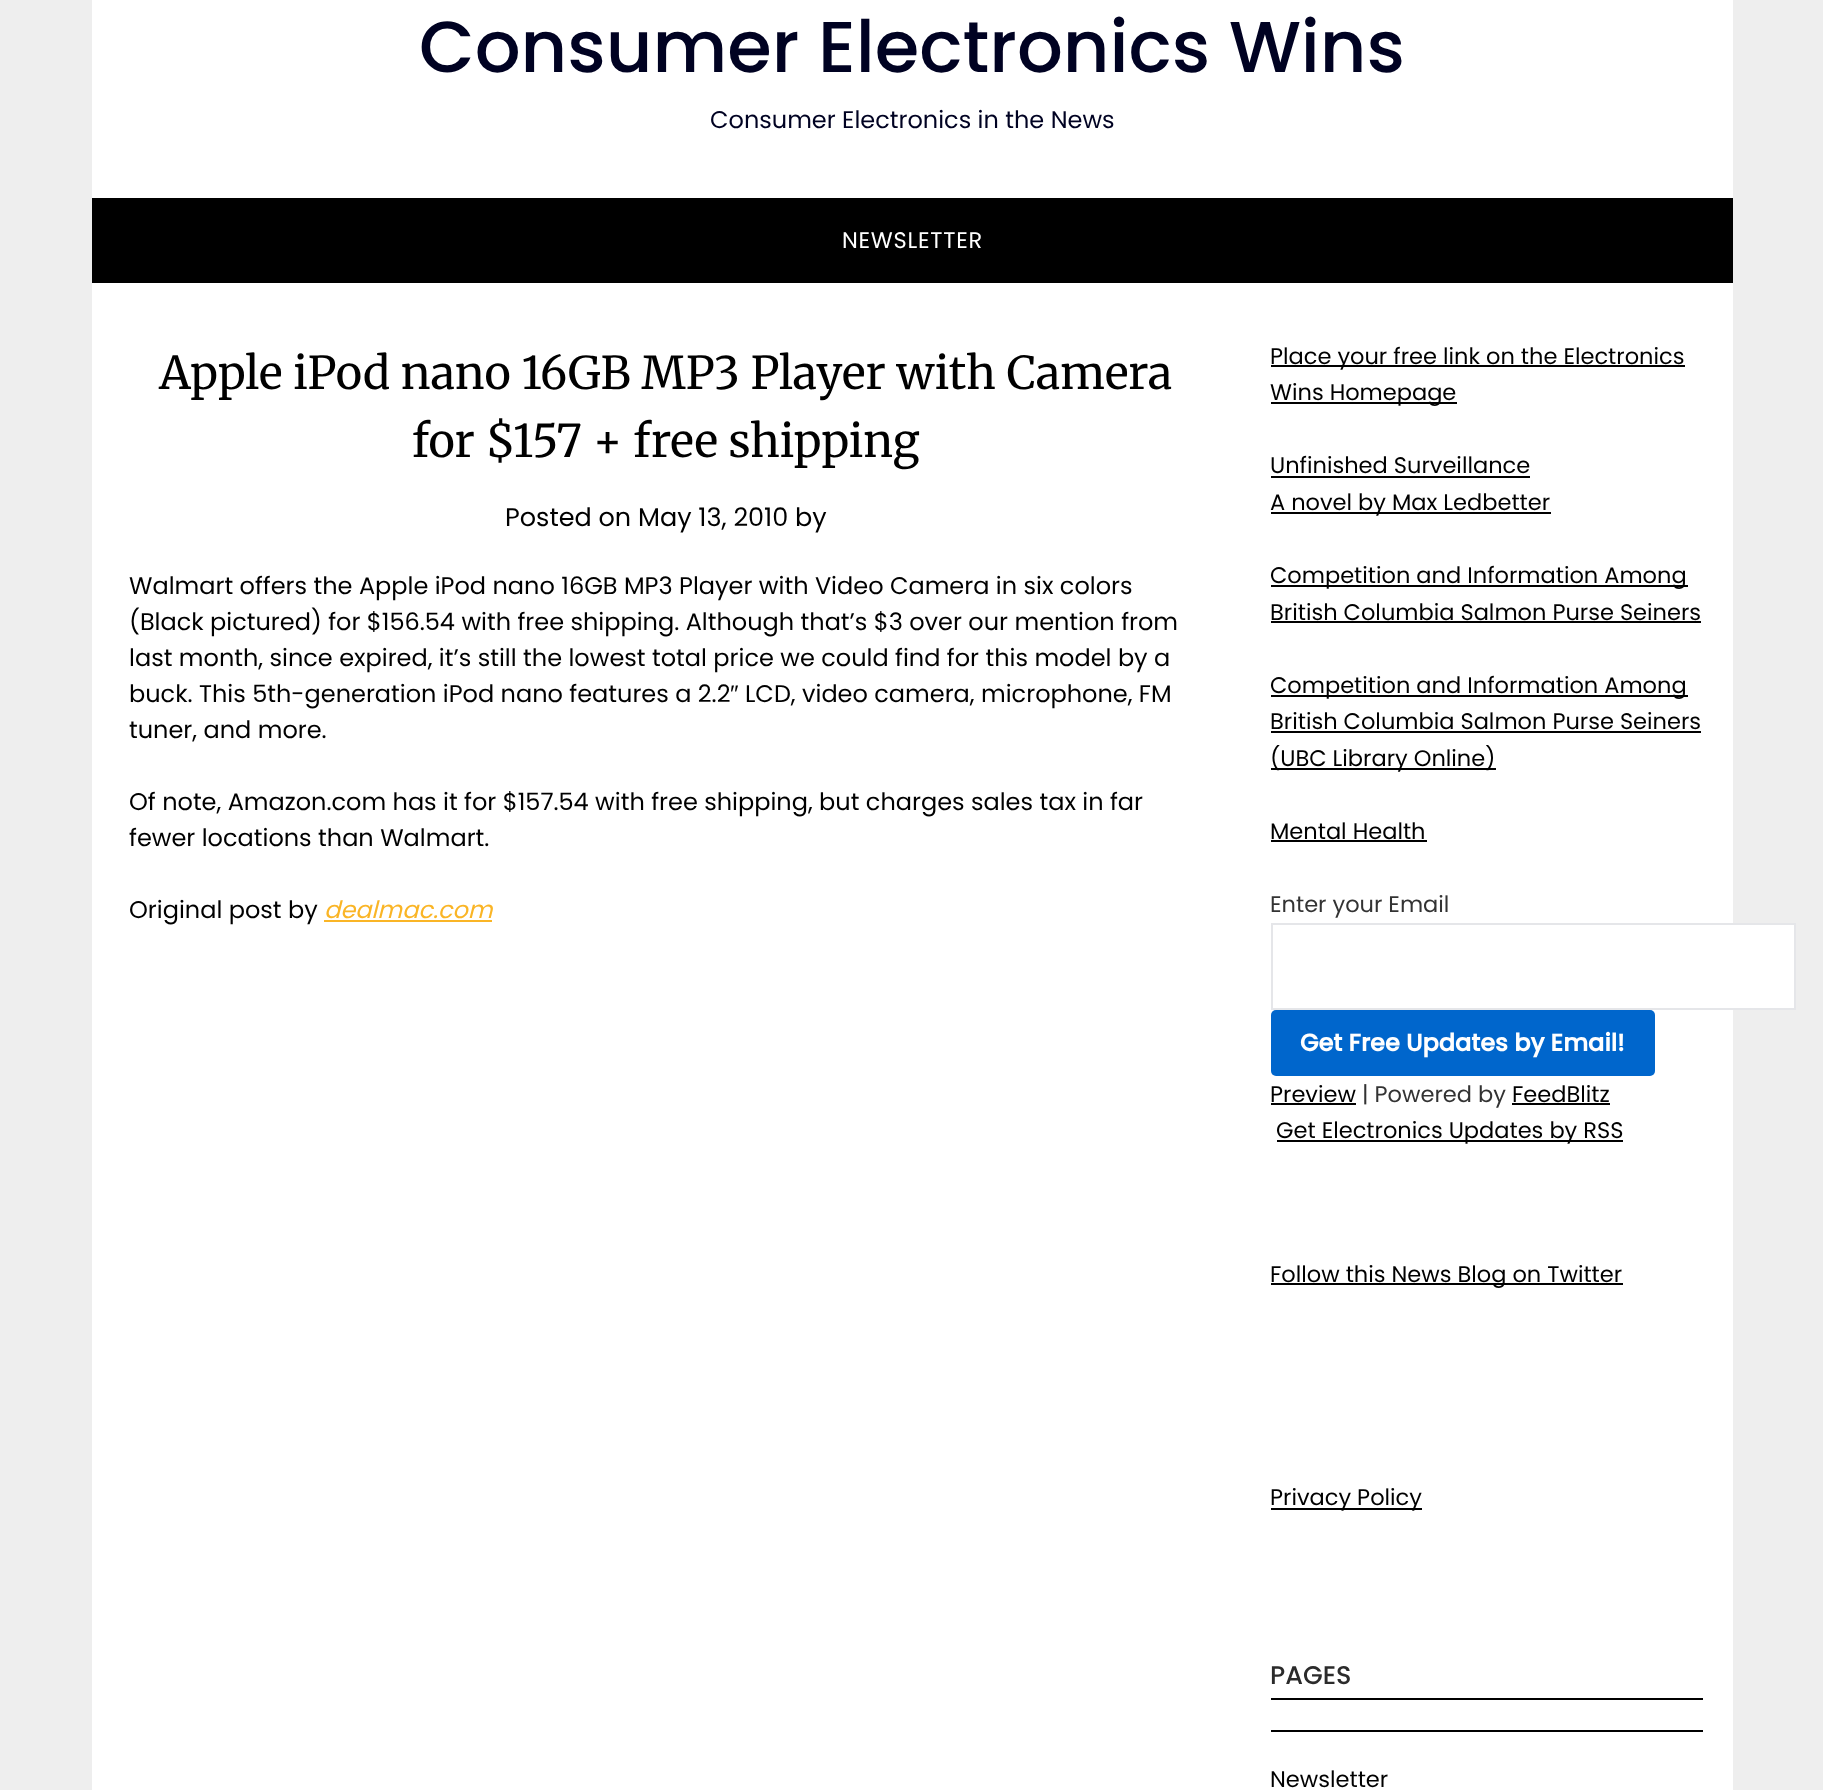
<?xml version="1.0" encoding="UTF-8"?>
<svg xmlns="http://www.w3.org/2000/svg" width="1823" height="1790">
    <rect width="100%" height="100%" fill="#EEEEEE"/>
    <rect x="92" y="0" width="1641" height="198" fill="#FFFFFF"/>
    <text x="419" y="72" font-family="Poppins" font-size="72" font-weight="500" fill="#000222">Consumer Electronics Wins</text>
    <text x="710" y="128" font-family="Poppins" font-size="24" fill="#000222">Consumer Electronics in the News</text>
    <rect x="92" y="198" width="1641" height="85" fill="#000000"/>
    <text x="842" y="248" font-family="Poppins" font-size="22.5" letter-spacing="0.75" fill="#FFFFFF">NEWSLETTER</text>
    <rect x="92" y="283" width="1641" height="1507" fill="#FFFFFF"/>
    <text x="159" y="389" font-family="Merriweather" font-size="45" fill="#000000">Apple iPod nano 16GB MP3 Player with Camera</text>
    <text x="412" y="457" font-family="Merriweather" font-size="45" fill="#000000">for $157 + free shipping</text>
    <text x="505" y="526" font-family="Poppins" font-size="25.5" fill="#000000">Posted on May 13, 2010 by</text>
    <text font-family="Poppins" font-size="24" fill="#000000">
        <tspan x="129" y="594">Walmart offers the Apple iPod nano 16GB MP3 Player with Video Camera in six colors</tspan>
        <tspan x="129" y="630">(Black pictured) for $156.54 with free shipping. Although that’s $3 over our mention from</tspan>
        <tspan x="129" y="666">last month, since expired, it’s still the lowest total price we could find for this model by a</tspan>
        <tspan x="129" y="702">buck. This 5th-generation iPod nano features a 2.2</tspan>
    </text>
    <text x="730" y="702" font-family="Liberation Sans" font-size="24" fill="#000000">″</text>
    <text x="745" y="702" font-family="Poppins" font-size="24" fill="#000000">LCD, video camera, microphone, FM</text>
    <text x="129" y="738" font-family="Poppins" font-size="24" fill="#000000">tuner, and more.</text>
    <text font-family="Poppins" font-size="24" fill="#000000">
        <tspan x="129" y="810">Of note, Amazon.com has it for $157.54 with free shipping, but charges sales tax in far</tspan>
        <tspan x="129" y="846">fewer locations than Walmart.</tspan>
    </text>
    <text x="129" y="918" font-family="Poppins" font-size="24" fill="#000000">Original post by</text>
    <text x="324" y="918" font-family="Poppins" font-size="24" font-style="italic" fill="#FAB526">dealmac.com</text>
    <rect x="324" y="920" width="168" height="2" fill="#FAB526"/>
    <rect x="1271" y="365" width="414" height="2" fill="#000000"/>
    <text x="1270" y="364" font-family="Poppins" font-size="22.5" fill="#000000">Place your free link on the Electronics</text>
    <rect x="1271" y="402" width="186" height="2" fill="#000000"/>
    <text x="1270" y="400" font-family="Poppins" font-size="22.5" fill="#000000">Wins Homepage</text>
    <text x="1270" y="473" font-family="Poppins" font-size="22.5" fill="#000000">Unfinished Surveillance</text>
    <rect x="1271" y="476" width="259" height="2" fill="#000000"/>
    <rect x="1271" y="512" width="280" height="2" fill="#000000"/>
    <text x="1270" y="510" font-family="Poppins" font-size="22.5" fill="#000000">A novel by Max Ledbetter</text>
    <rect x="1271" y="585" width="417" height="2" fill="#000000"/>
    <text font-family="Poppins" font-size="22.5" fill="#000000">
        <tspan x="1270" y="583">Competition and Information Among</tspan>
        <tspan x="1270" y="620">British Columbia Salmon Purse Seiners</tspan>
    </text>
    <rect x="1271" y="621" width="430" height="2" fill="#000000"/>
    <rect x="1271" y="695" width="417" height="2" fill="#000000"/>
    <text font-family="Poppins" font-size="22.5" fill="#000000">
        <tspan x="1270" y="693">Competition and Information Among</tspan>
        <tspan x="1270" y="729">British Columbia Salmon Purse Seiners</tspan>
    </text>
    <rect x="1271" y="731" width="430" height="2" fill="#000000"/>
    <rect x="1271" y="768" width="225" height="2" fill="#000000"/>
    <text x="1270" y="766" font-family="Poppins" font-size="22.5" fill="#000000">(UBC Library Online)</text>
    <text x="1270" y="839" font-family="Poppins" font-size="22.5" fill="#000000">Mental Health</text>
    <rect x="1271" y="840" width="156" height="2" fill="#000000"/>
    <text x="1270" y="912" font-family="Poppins" font-size="22.5" fill="#333333">Enter your Email</text>
    <rect x="1733" y="925" width="61" height="83" fill="#FFFFFF"/>
    <rect x="1272" y="924" width="523" height="85" fill="none" stroke="#E5E6E9" stroke-width="2"/>
    <rect x="1271" y="1010" width="384" height="66" rx="5" fill="#0066CC"/>
    <text x="1300" y="1051" font-family="Poppins" font-size="24" font-weight="700" fill="#FFFFFF">Get Free Updates by Email!</text>
    <text x="1270" y="1102" font-family="Poppins" font-size="22.5" fill="#000000">Preview</text>
    <rect x="1271" y="1103" width="85" height="2" fill="#000000"/>
    <text x="1362" y="1102" font-family="Poppins" font-size="22.5" fill="#333333">| Powered by</text>
    <text x="1512" y="1102" font-family="Poppins" font-size="22.5" fill="#000000">FeedBlitz</text>
    <rect x="1512" y="1103" width="98" height="2" fill="#000000"/>
    <rect x="1277" y="1140" width="346" height="2" fill="#000000"/>
    <text x="1276" y="1138" font-family="Poppins" font-size="22.5" fill="#000000">Get Electronics Updates by RSS</text>
    <rect x="1271" y="1283" width="352" height="2" fill="#000000"/>
    <text x="1270" y="1282" font-family="Poppins" font-size="22.5" fill="#000000">Follow this News Blog on Twitter</text>
    <rect x="1271" y="1508" width="151" height="2" fill="#000000"/>
    <text x="1270" y="1505" font-family="Poppins" font-size="22.5" fill="#000000">Privacy Policy</text>
    <rect x="1271" y="1730" width="432" height="2" fill="#000000"/>
    <rect x="1271" y="1698" width="432" height="2" fill="#000000"/>
    <text x="1270" y="1684" font-family="Poppins" font-size="25.5" font-weight="500" fill="#2B2B2B">PAGES</text>
    <text x="1270" y="1787" font-family="Poppins" font-size="22.5" fill="#000000">Newsletter</text>
</svg>
